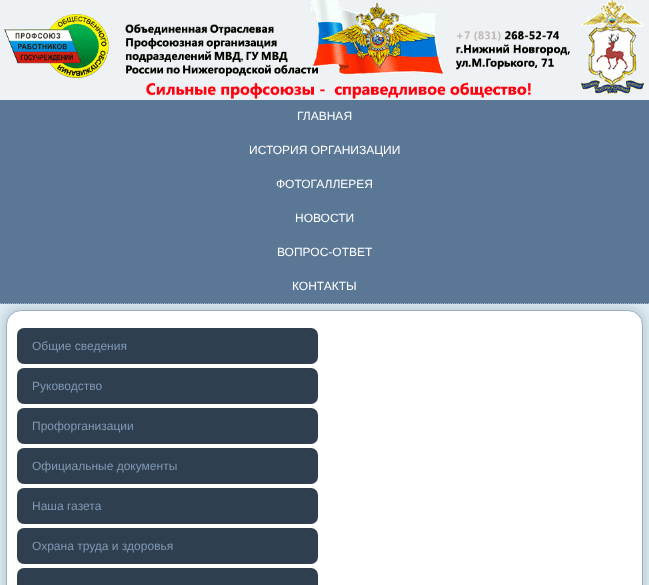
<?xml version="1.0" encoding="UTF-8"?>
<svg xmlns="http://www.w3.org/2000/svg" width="649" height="585">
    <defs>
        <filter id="blur1" x="-50%" y="-200%" width="200%" height="500%"><feGaussianBlur stdDeviation="3.5"/></filter>
    </defs>
    <rect width="100%" height="100%" fill="#DBEBF3"/>
    <image x="0" y="0" width="649" height="100" href="img_01.png"/>
    <rect x="2" y="306" width="645" height="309" rx="19" fill="#000000" fill-opacity="0.1" filter="url(#blur1)"/>
    <rect x="0" y="100" width="649" height="204" fill="#5A7796"/>
    <path d="M 0 303.5 H 649" fill="none" stroke="#A3B4C8" stroke-dasharray="1 1"/>
    <text x="297" y="120" font-family="Liberation Sans" font-size="12" fill="#FFFFFF">ГЛАВНАЯ</text>
    <text x="249" y="154" font-family="Liberation Sans" font-size="12" fill="#FFFFFF">ИСТОРИЯ ОРГАНИЗАЦИИ</text>
    <text x="276" y="188" font-family="Liberation Sans" font-size="12" fill="#FFFFFF">ФОТОГАЛЛЕРЕЯ</text>
    <text x="295" y="222" font-family="Liberation Sans" font-size="12" fill="#FFFFFF">НОВОСТИ</text>
    <text x="277" y="256" font-family="Liberation Sans" font-size="12" fill="#FFFFFF">ВОПРОС-ОТВЕТ</text>
    <text x="292" y="290" font-family="Liberation Sans" font-size="12" fill="#FFFFFF">КОНТАКТЫ</text>
    <rect x="6.5" y="310.5" width="636" height="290" rx="14.5" fill="#FFFFFF" stroke="#9CAFC4"/>
    <rect x="17" y="328" width="301" height="36" rx="7" fill="#303F50"/>
    <text x="32" y="350" font-family="Liberation Sans" font-size="12" fill="#8098B3">Общие сведения</text>
    <rect x="17" y="368" width="301" height="36" rx="7" fill="#303F50"/>
    <text x="32" y="390" font-family="Liberation Sans" font-size="12" fill="#8098B3">Руководство</text>
    <rect x="17" y="408" width="301" height="36" rx="7" fill="#303F50"/>
    <text x="32" y="430" font-family="Liberation Sans" font-size="12" fill="#8098B3">Профорганизации</text>
    <rect x="17" y="448" width="301" height="36" rx="7" fill="#303F50"/>
    <text x="32" y="470" font-family="Liberation Sans" font-size="12" fill="#8098B3">Официальные документы</text>
    <rect x="17" y="488" width="301" height="36" rx="7" fill="#303F50"/>
    <text x="32" y="510" font-family="Liberation Sans" font-size="12" fill="#8098B3">Наша газета</text>
    <rect x="17" y="528" width="301" height="36" rx="7" fill="#303F50"/>
    <text x="32" y="550" font-family="Liberation Sans" font-size="12" fill="#8098B3">Охрана труда и здоровья</text>
    <rect x="17" y="568" width="301" height="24" rx="7" fill="#303F50"/>
</svg>
